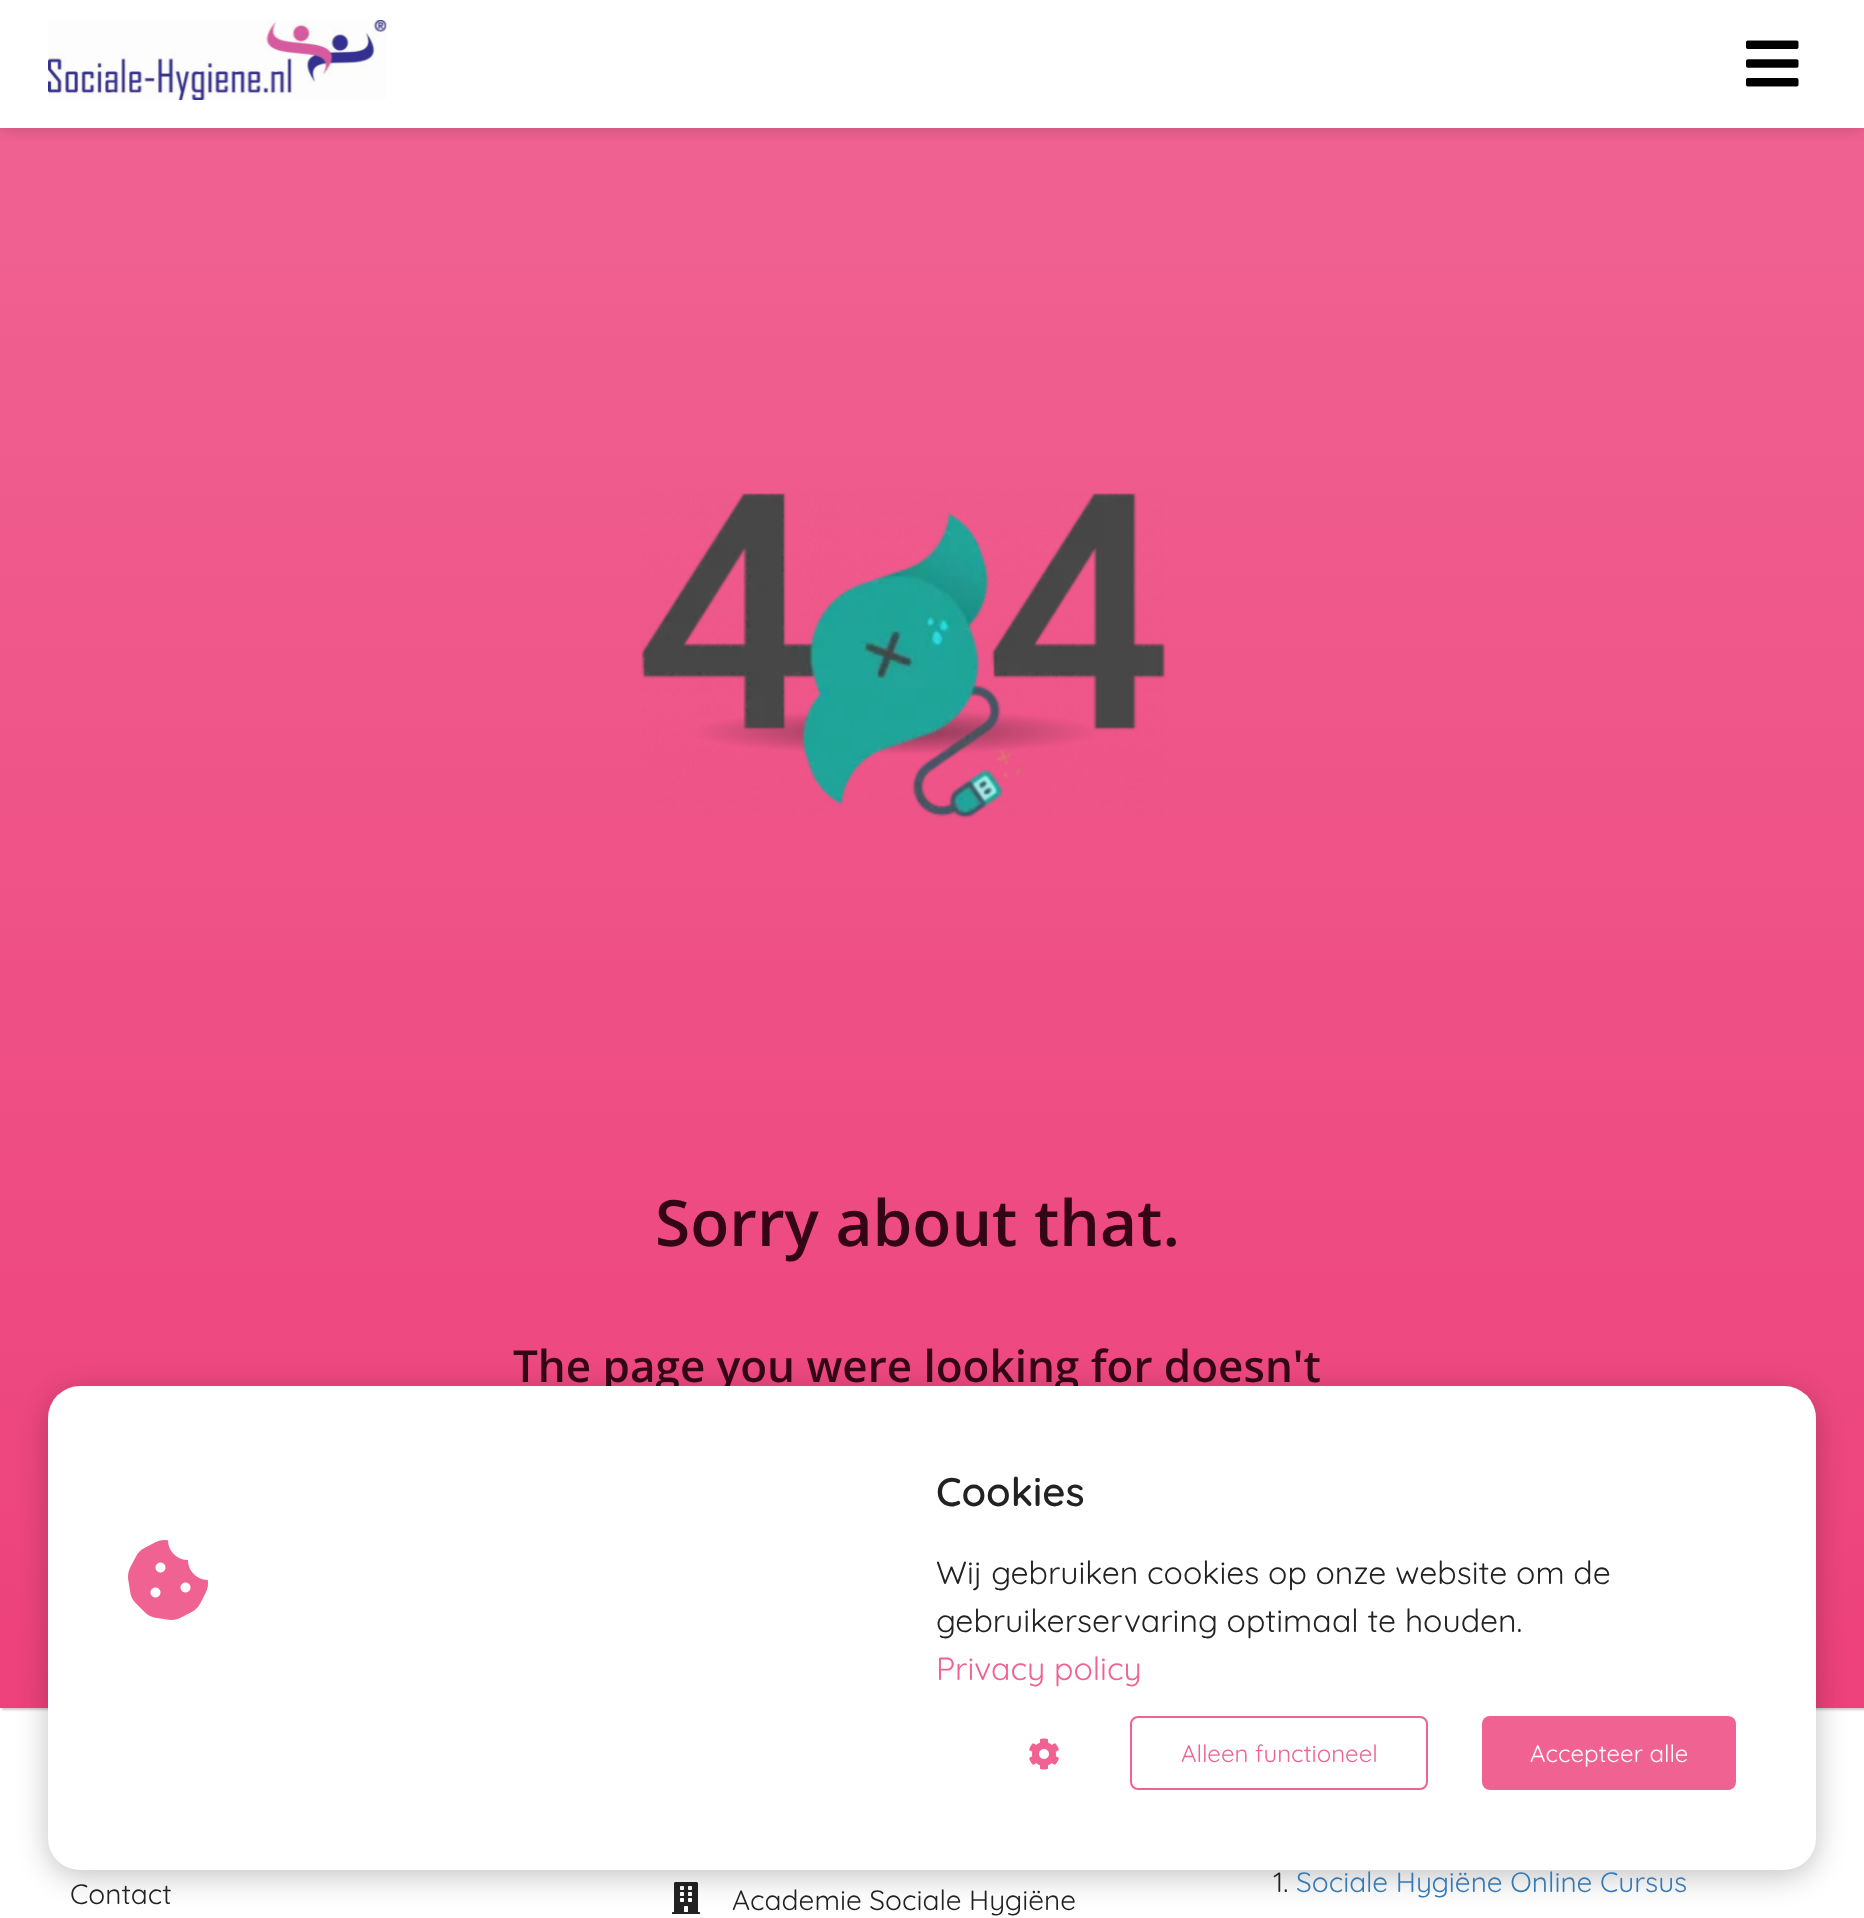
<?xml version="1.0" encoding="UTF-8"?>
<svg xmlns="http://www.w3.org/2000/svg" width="1864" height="1918">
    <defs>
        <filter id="blur1" x="-50%" y="-200%" width="200%" height="500%"><feGaussianBlur stdDeviation="1"/></filter>
        <linearGradient id="g1" gradientUnits="userSpaceOnUse" x1="932" y1="128" x2="932" y2="1708"><stop offset="0" stop-color="#F06292"/><stop offset="1" stop-color="#ED417B"/></linearGradient>
        <clipPath id="clip1"><rect x="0" y="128" width="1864" height="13"/></clipPath>
        <filter id="blur2" x="-50%" y="-200%" width="200%" height="500%"><feGaussianBlur stdDeviation="10"/></filter>
        <filter id="blur3" x="-50%" y="-200%" width="200%" height="500%"><feGaussianBlur stdDeviation="15"/></filter>
    </defs>
    <rect width="100%" height="100%" fill="#FFFFFF"/>
    <rect x="2" y="130" width="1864" height="1580" fill="#A3A3A3" fill-opacity="0.57" filter="url(#blur1)"/>
    <rect x="0" y="128" width="1864" height="1580" fill="url(#g1)"/>
    <g clip-path="url(#clip1)">
        <rect x="0" y="0" width="1864" height="128" fill="#000000" fill-opacity="0.2" filter="url(#blur2)"/>
    </g>
    <image x="48" y="20" width="339" height="80" href="img_01.png"/>
    <image x="1746" y="40" width="53" height="47" href="img_02.png"/>
    <image x="641" y="493" width="525" height="326" href="img_03.png"/>
    <text x="655" y="1246" font-family="Open Sans" font-size="64" font-weight="600" fill="#340515">Sorry about that.</text>
    <text x="513" y="1382" font-family="Open Sans" font-size="44" font-weight="600" fill="#340515">The page you were looking for doesn't</text>
    <image x="672" y="1882" width="28" height="32" href="img_06.png"/>
    <rect x="48" y="1392" width="1768" height="484" rx="32" fill="#000000" fill-opacity="0.24" filter="url(#blur3)"/>
    <rect x="48" y="1386" width="1768" height="484" rx="32" fill="#FFFFFF"/>
    <image x="128" y="1540" width="81" height="80" href="img_04.png"/>
    <text x="936" y="1506" font-family="Quicksand" font-size="40" font-weight="600" fill="#222222">Cookies</text>
    <text font-family="Quicksand" font-size="32" fill="#222222">
        <tspan x="936" y="1584">Wij gebruiken cookies op onze website om de</tspan>
        <tspan x="936" y="1632">gebruikerservaring optimaal te houden.</tspan>
    </text>
    <text x="936" y="1680" font-family="Quicksand" font-size="32" fill="#F06292">Privacy policy</text>
    <image x="1029" y="1738" width="30" height="32" href="img_05.png"/>
    <rect x="1131" y="1717" width="296" height="72" rx="7" fill="none" stroke="#F06292" stroke-width="2"/>
    <text x="1181" y="1762" font-family="Quicksand" font-size="24" fill="#F06292">Alleen functioneel</text>
    <rect x="1482" y="1716" width="254" height="74" rx="8" fill="#F06292"/>
    <text x="1530" y="1762" font-family="Quicksand" font-size="24" fill="#FFFFFF">Accepteer alle</text>
    <text x="70" y="1904" font-family="Quicksand" font-size="28" fill="#222222">Contact</text>
    <text x="732" y="1910" font-family="Quicksand" font-size="28" fill="#222222">Academie Sociale Hygiëne</text>
    <text x="1273" y="1892" font-family="Quicksand" font-size="28" fill="#222222">1.</text>
    <text x="1296" y="1892" font-family="Quicksand" font-size="28" fill="#337AB7">Sociale Hygiëne Online Cursus</text>
</svg>
